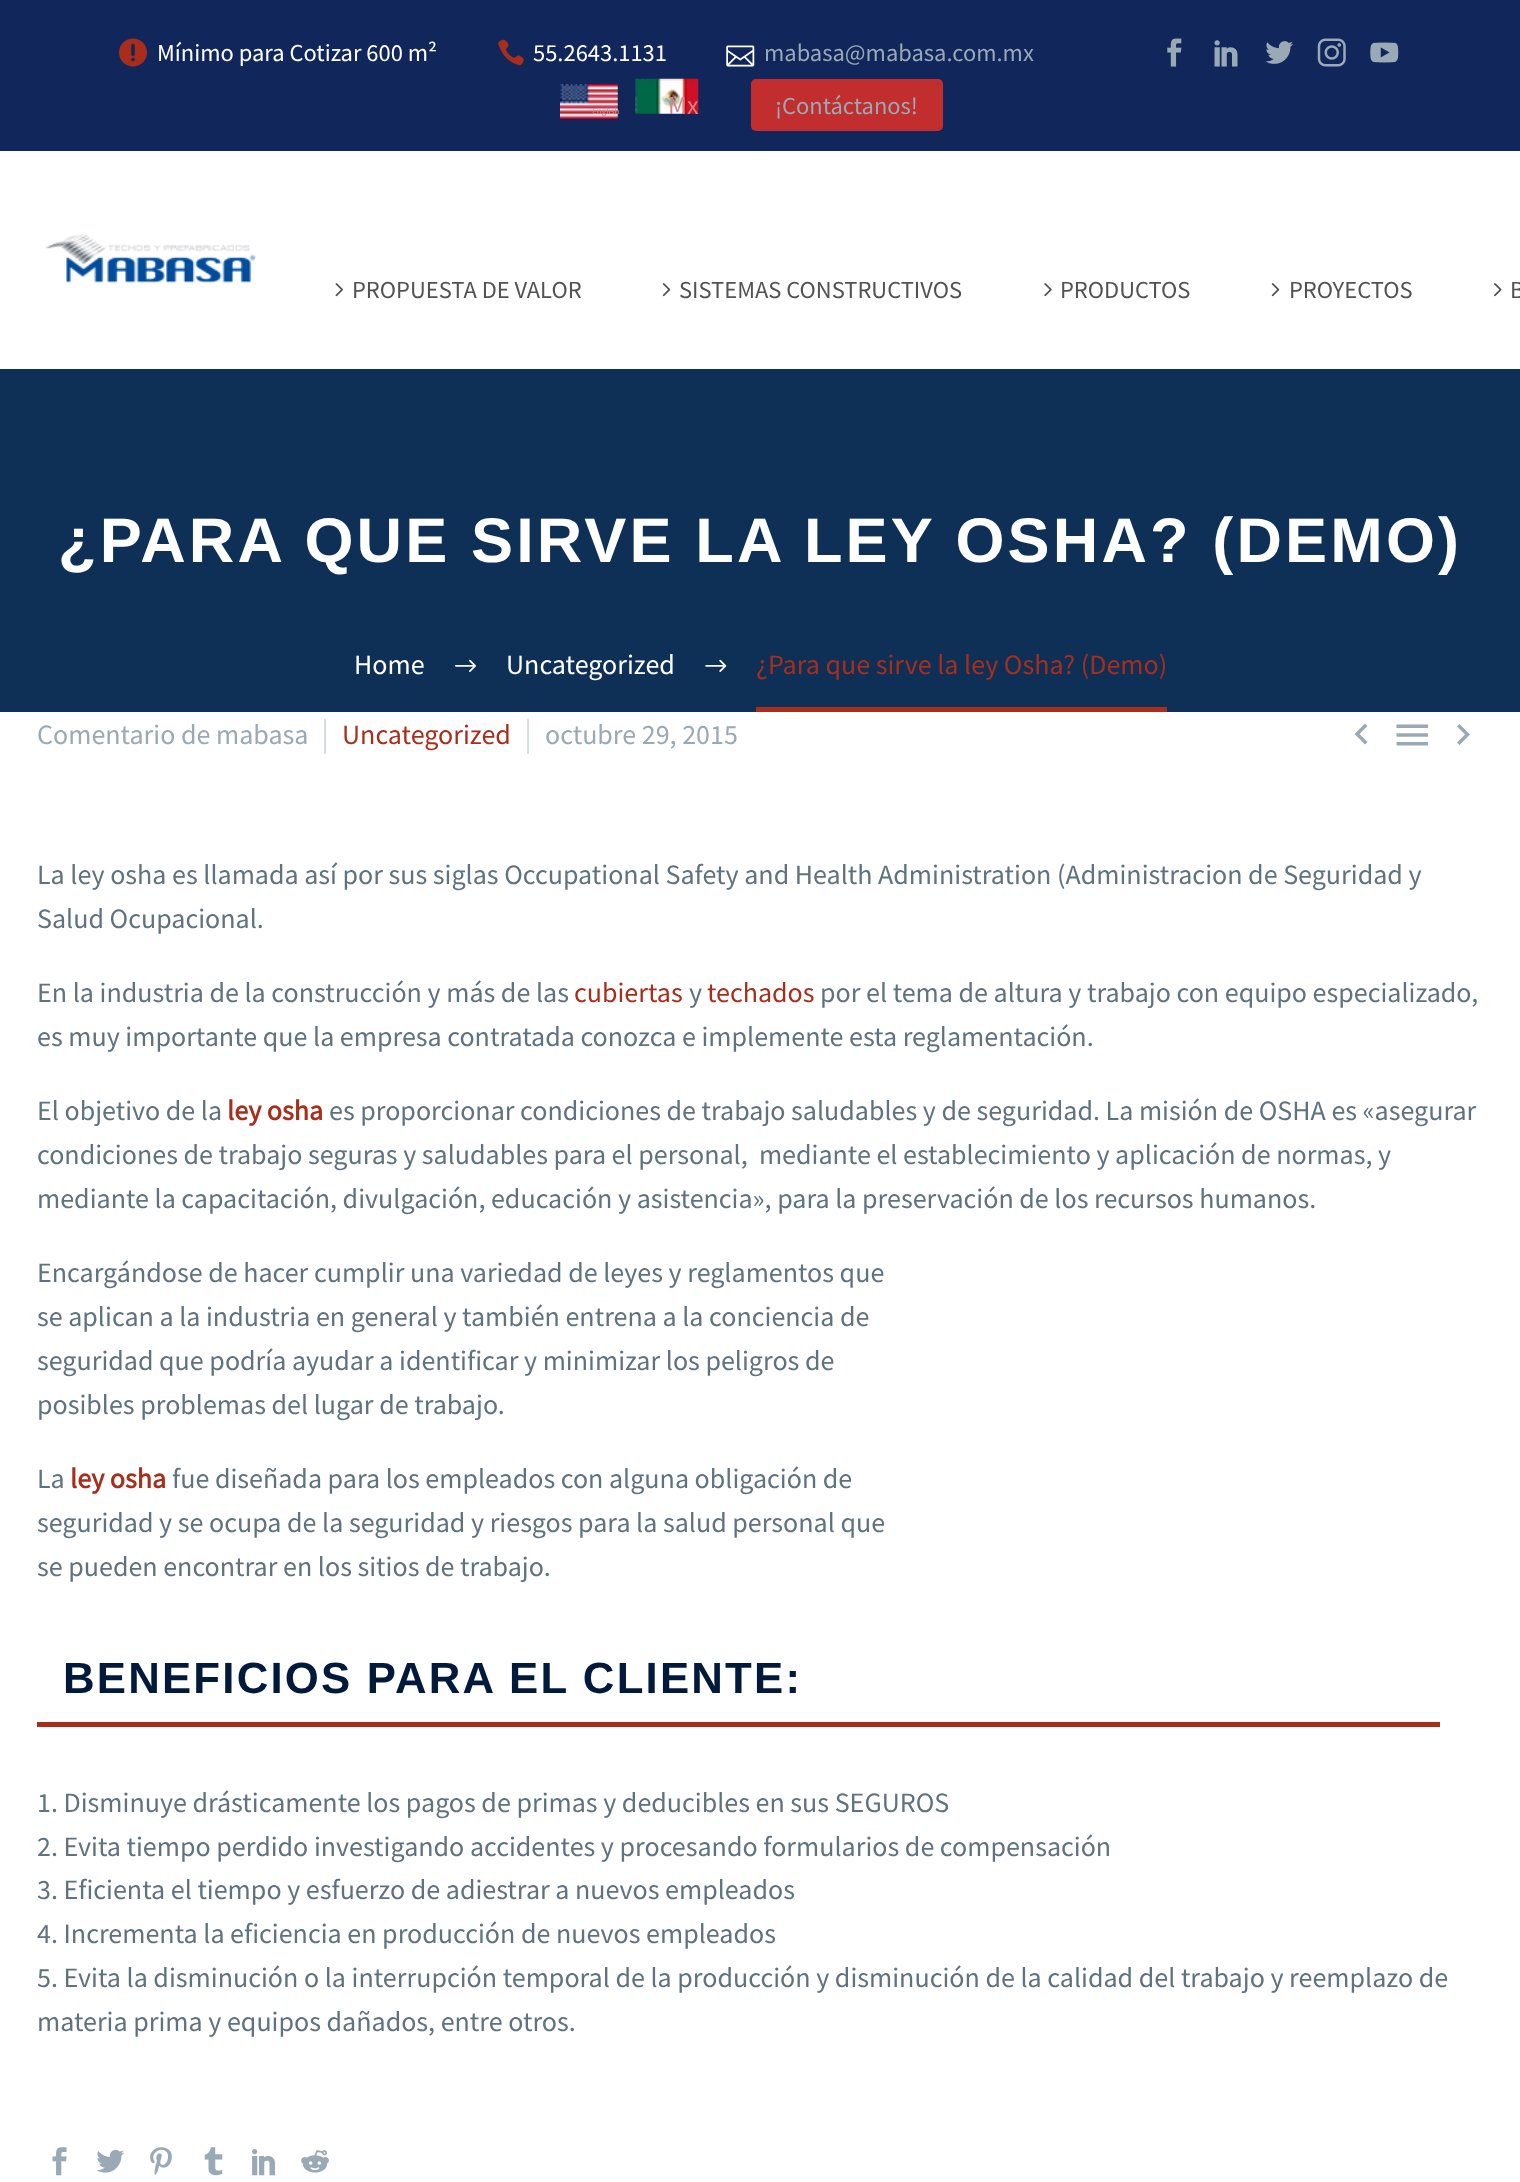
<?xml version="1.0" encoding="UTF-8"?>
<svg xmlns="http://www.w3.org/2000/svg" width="1520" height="2182">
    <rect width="100%" height="100%" fill="#FFFFFF"/>
    <rect x="0" y="0" width="1520" height="151" fill="#11275C"/>
    <image x="119" y="38" width="28" height="29" href="img_01.png"/>
    <text x="157" y="61" font-family="Source Sans Pro" font-size="24.5" fill="#FFFFFF">Mínimo para Cotizar 600 m²</text>
    <image x="498" y="39" width="26" height="27" href="img_02.png"/>
    <text x="533" y="61" font-family="Source Sans Pro" font-size="24.5" fill="#FFFFFF">55.2643.1131</text>
    <image x="726" y="45" width="29" height="22" href="img_03.png"/>
    <text x="764" y="61" font-family="Source Sans Pro" font-size="24.5" fill="#99A9B5">mabasa@mabasa.com.mx</text>
    <image x="1167" y="38" width="15" height="29" href="img_04.png"/>
    <image x="1214" y="40" width="24" height="27" href="img_05.png"/>
    <image x="1265" y="41" width="28" height="23" href="img_06.png"/>
    <image x="1317" y="38" width="29" height="29" href="img_07.png"/>
    <image x="1370" y="42" width="29" height="21" href="img_08.png"/>
    <image x="560" y="84" width="58" height="35" href="img_09.png"/>
    <text x="592" y="114" font-family="Source Sans Pro" font-size="9" fill="#D5858D">English</text>
    <image x="635" y="78" width="64" height="36" href="img_10.png"/>
    <text x="668" y="114" font-family="Source Sans Pro" font-size="26" fill="#D28587">Mx</text>
    <rect x="751" y="79" width="192" height="52" rx="5" fill="#C22E2E"/>
    <text x="775" y="114" font-family="Source Sans Pro" font-size="24.5" fill="#99A9B5">¡Contáctanos!</text>
    <image x="45" y="234" width="211" height="49" href="img_11.png"/>
    <image x="335" y="283" width="8" height="14" href="img_12.png"/>
    <text x="352" y="298" font-family="Source Sans Pro" font-size="24.5" fill="#525252">PROPUESTA DE VALOR</text>
    <image x="662" y="283" width="9" height="14" href="img_13.png"/>
    <text x="679" y="298" font-family="Source Sans Pro" font-size="24.5" fill="#525252">SISTEMAS CONSTRUCTIVOS</text>
    <image x="1044" y="283" width="8" height="14" href="img_14.png"/>
    <text x="1060" y="298" font-family="Source Sans Pro" font-size="24.5" fill="#525252">PRODUCTOS</text>
    <image x="1271" y="283" width="9" height="14" href="img_13.png"/>
    <text x="1289" y="298" font-family="Source Sans Pro" font-size="24.5" fill="#525252">PROYECTOS</text>
    <image x="1494" y="283" width="8" height="14" href="img_15.png"/>
    <text x="1510" y="298" font-family="Source Sans Pro" font-size="24.5" fill="#525252">B</text>
    <rect x="0" y="369" width="1520" height="343" fill="#0E3057"/>
    <text x="58" y="562" font-family="Liberation Sans" font-size="63" font-weight="700" letter-spacing="3.15" fill="#FFFFFF">¿PARA QUE SIRVE LA LEY OSHA? (DEMO)</text>
    <text x="354" y="674" font-family="Source Sans Pro" font-size="28" fill="#FFFFFF">Home</text>
    <image x="455" y="659" width="21" height="13" href="img_16.png"/>
    <text x="506" y="674" font-family="Source Sans Pro" font-size="28" fill="#FFFFFF">Uncategorized</text>
    <image x="705" y="659" width="22" height="13" href="img_17.png"/>
    <rect x="756" y="707" width="411" height="5" fill="#A82E1B"/>
    <text x="756" y="674" font-family="Source Sans Pro" font-size="28" fill="#A82E1B">¿Para que sirve la ley Osha? (Demo)</text>
    <text x="37" y="744" font-family="Source Sans Pro" font-size="28" fill="#99A9B5">Comentario de mabasa</text>
    <rect x="324" y="719" width="2" height="35" fill="#D4DEE1"/>
    <text x="342" y="744" font-family="Source Sans Pro" font-size="28" fill="#A82E1B">Uncategorized</text>
    <rect x="527" y="719" width="2" height="35" fill="#D4DEE1"/>
    <text x="545" y="744" font-family="Source Sans Pro" font-size="28" fill="#99A9B5">octubre 29, 2015</text>
    <path d="M 1367.5 742 L 1359.5 734 L 1367.5 726 L 1365 723.5 L 1354.5 734 L 1365 744.5 Z" fill="#99A9B5"/>
    <image x="1396" y="724" width="32" height="22" href="img_18.png"/>
    <path d="M 1457 742.5 L 1465 734.5 L 1457 726.5 L 1459.5 724 L 1470 734.5 L 1459.5 745 Z" fill="#99A9B5"/>
    <text font-family="Source Sans Pro" font-size="28" fill="#5F727F">
        <tspan x="37" y="884">La ley osha es llamada así por sus siglas Occupational Safety and Health Administration (Administracion de Seguridad y</tspan>
        <tspan x="37" y="928">Salud Ocupacional.</tspan>
    </text>
    <text x="37" y="1002" font-family="Source Sans Pro" font-size="28" fill="#5F727F">En la industria de la construcción y más de las</text>
    <text x="574" y="1002" font-family="Source Sans Pro" font-size="28" fill="#A82E1B">cubiertas</text>
    <text x="689" y="1002" font-family="Source Sans Pro" font-size="28" fill="#5F727F">y</text>
    <text x="707" y="1002" font-family="Source Sans Pro" font-size="28" fill="#A82E1B">techados</text>
    <text x="820" y="1002" font-family="Source Sans Pro" font-size="28" fill="#5F727F">por el tema de altura y trabajo con equipo especializado,</text>
    <text x="37" y="1046" font-family="Source Sans Pro" font-size="28" fill="#5F727F">es muy importante que la empresa contratada conozca e implemente esta reglamentación.</text>
    <text x="37" y="1120" font-family="Source Sans Pro" font-size="28" fill="#5F727F">El objetivo de la</text>
    <text x="227" y="1120" font-family="Source Sans Pro" font-size="28" font-weight="700" fill="#A82E1B">ley osha</text>
    <text x="329" y="1120" font-family="Source Sans Pro" font-size="28" fill="#5F727F">es proporcionar condiciones de trabajo saludables y de seguridad. La misión de OSHA es «asegurar</text>
    <text font-family="Source Sans Pro" font-size="28" fill="#5F727F" xml:space="preserve"><tspan x="37" y="1164">condiciones de trabajo seguras y saludables para el personal,  mediante el establecimiento y aplicación de normas, y</tspan><tspan x="37" y="1208">mediante la capacitación, divulgación, educación y asistencia», para la preservación de los recursos humanos.</tspan></text>
    <text font-family="Source Sans Pro" font-size="28" fill="#5F727F">
        <tspan x="37" y="1282">Encargándose de hacer cumplir una variedad de leyes y reglamentos que</tspan>
        <tspan x="37" y="1326">se aplican a la industria en general y también entrena a la conciencia de</tspan>
        <tspan x="37" y="1370">seguridad que podría ayudar a identificar y minimizar los peligros de</tspan>
        <tspan x="37" y="1414">posibles problemas del lugar de trabajo.</tspan>
    </text>
    <text x="37" y="1488" font-family="Source Sans Pro" font-size="28" fill="#5F727F">La</text>
    <text x="70" y="1488" font-family="Source Sans Pro" font-size="28" font-weight="700" fill="#A82E1B">ley osha</text>
    <text x="172" y="1488" font-family="Source Sans Pro" font-size="28" fill="#5F727F">fue diseñada para los empleados con alguna obligación de</text>
    <text font-family="Source Sans Pro" font-size="28" fill="#5F727F">
        <tspan x="37" y="1532">seguridad y se ocupa de la seguridad y riesgos para la salud personal que</tspan>
        <tspan x="37" y="1576">se pueden encontrar en los sitios de trabajo.</tspan>
    </text>
    <rect x="37" y="1722" width="1403" height="5" fill="#A82E1B"/>
    <text x="63" y="1693" font-family="Liberation Sans" font-size="43.75" font-weight="700" letter-spacing="2.2" fill="#01193B">BENEFICIOS PARA EL CLIENTE:</text>
    <text font-family="Source Sans Pro" font-size="28" fill="#5F727F">
        <tspan x="37" y="1812">1. Disminuye drásticamente los pagos de primas y deducibles en sus SEGUROS</tspan>
        <tspan x="37" y="1856">2. Evita tiempo perdido investigando accidentes y procesando formularios de compensación</tspan>
        <tspan x="37" y="1899">3. Eficienta el tiempo y esfuerzo de adiestrar a nuevos empleados</tspan>
        <tspan x="37" y="1943">4. Incrementa la eficiencia en producción de nuevos empleados</tspan>
        <tspan x="37" y="1987">5. Evita la disminución o la interrupción temporal de la producción y disminución de la calidad del trabajo y reemplazo de</tspan>
        <tspan x="37" y="2031">materia prima y equipos dañados, entre otros.</tspan>
    </text>
    <image x="52" y="2147" width="15" height="29" href="img_19.png"/>
    <image x="96" y="2149" width="28" height="24" href="img_20.png"/>
    <image x="150" y="2147" width="22" height="28" href="img_21.png"/>
    <image x="204" y="2147" width="19" height="29" href="img_22.png"/>
    <image x="252" y="2149" width="23" height="27" href="img_23.png"/>
    <image x="301" y="2150" width="28" height="23" href="img_24.png"/>
</svg>
